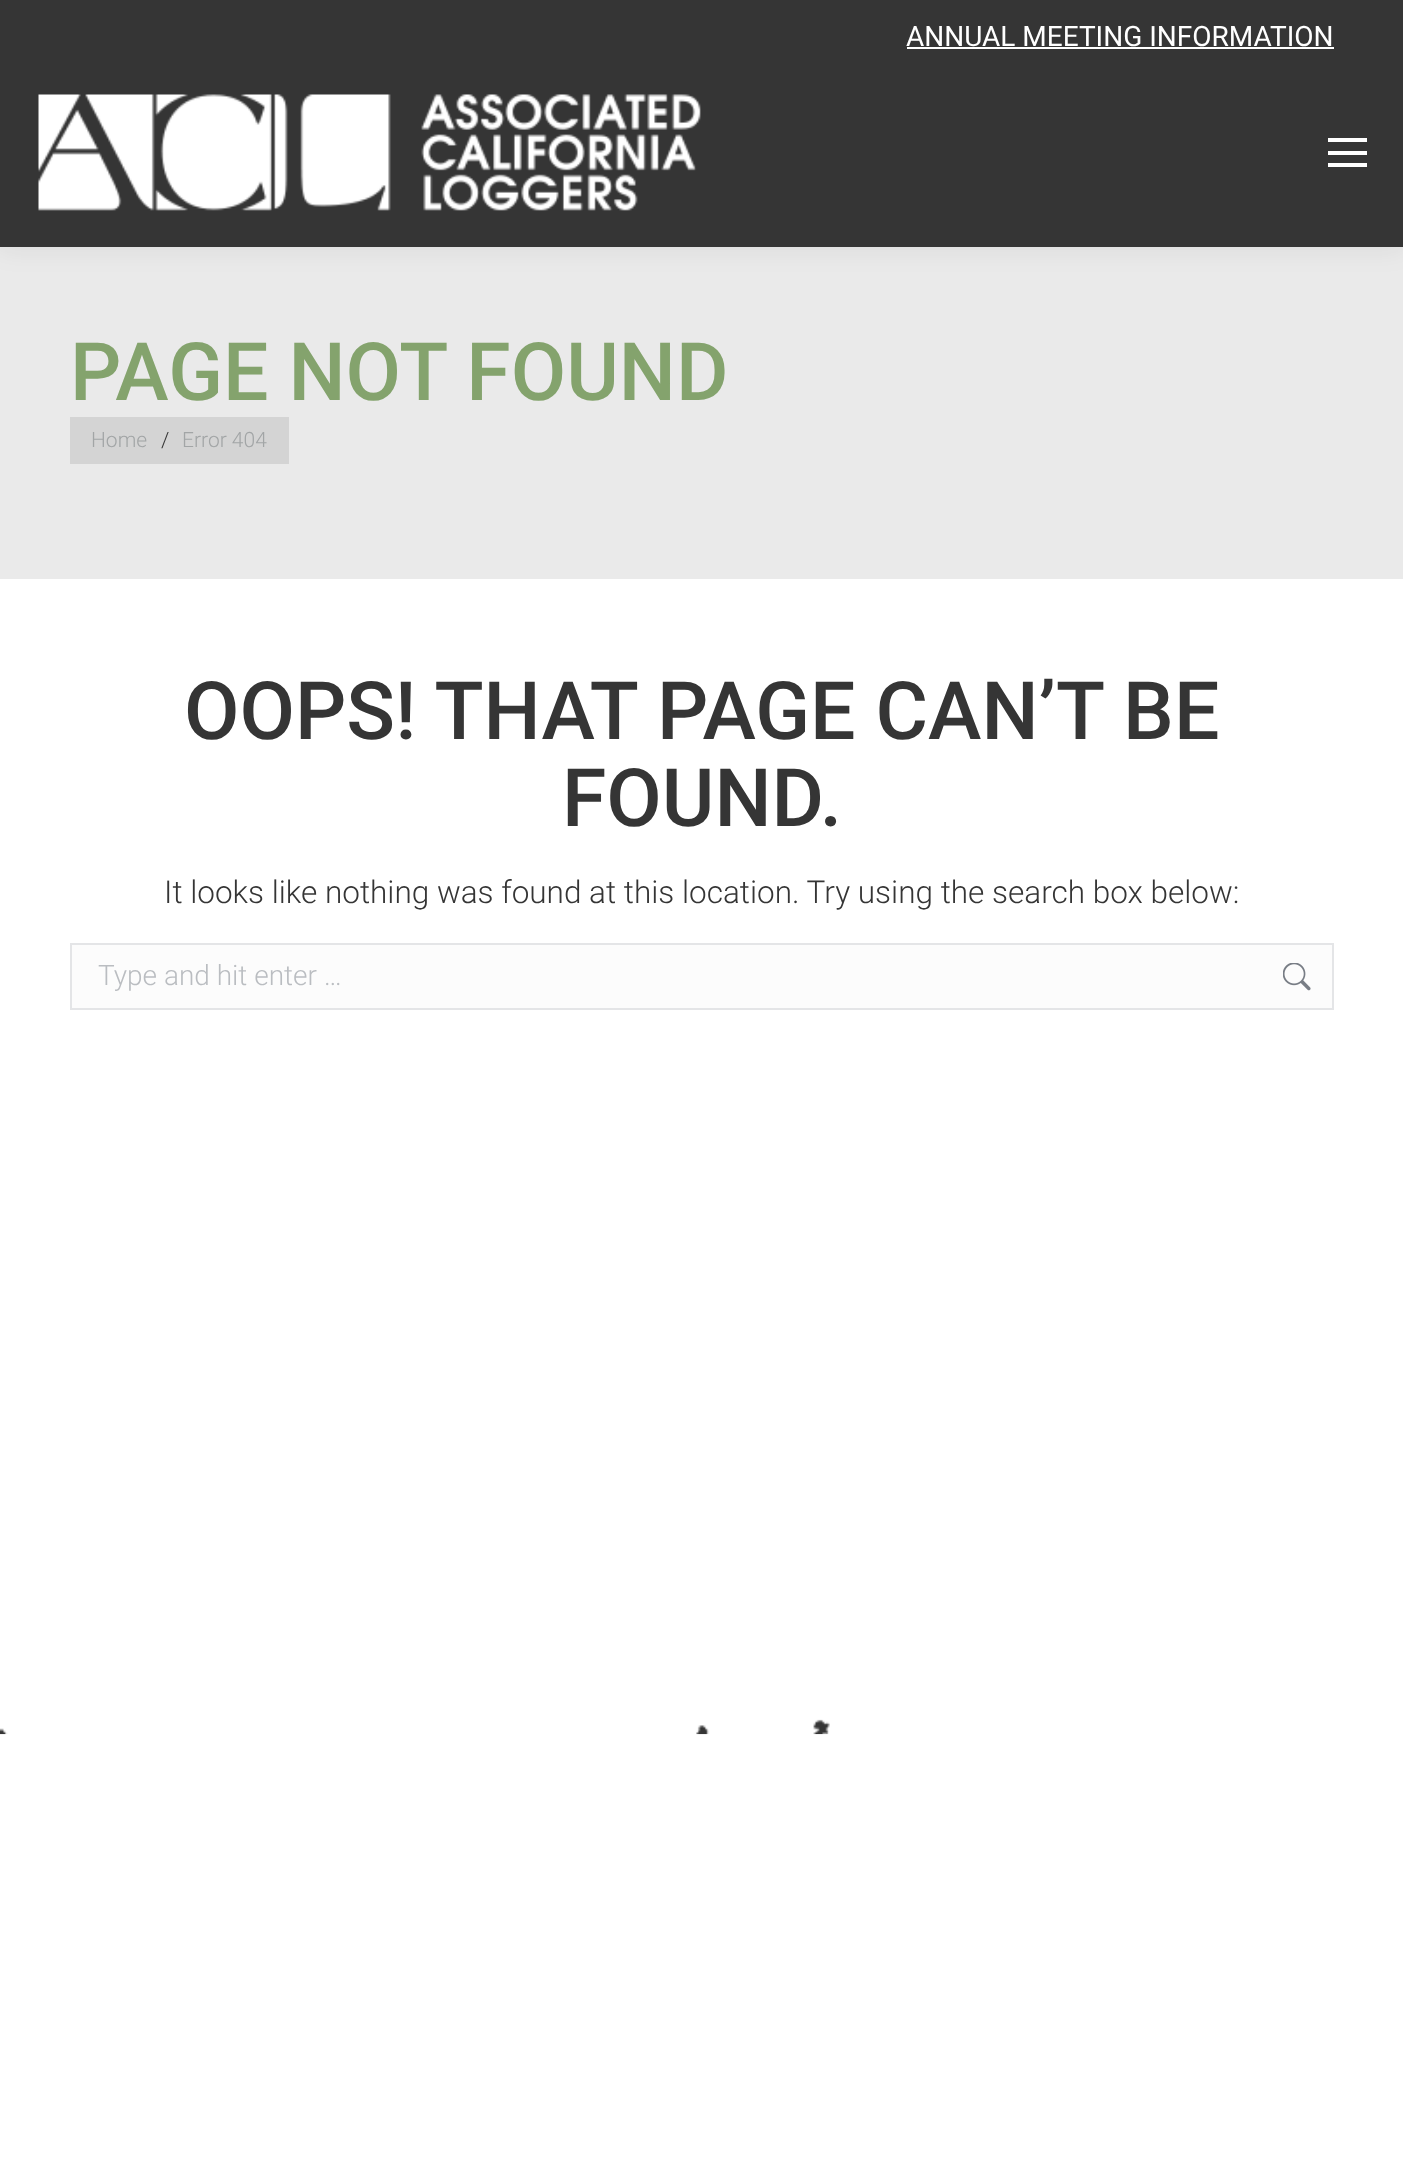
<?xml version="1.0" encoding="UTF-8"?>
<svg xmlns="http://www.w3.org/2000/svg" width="1403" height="2183">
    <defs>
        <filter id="blur1" x="-50%" y="-200%" width="200%" height="500%"><feGaussianBlur stdDeviation="13"/></filter>
    </defs>
    <rect width="100%" height="100%" fill="#FFFFFF"/>
    <rect x="0" y="247" width="1403" height="332" fill="#EAEAEA"/>
    <rect x="-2" y="-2" width="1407" height="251" fill="#000000" fill-opacity="0.07" filter="url(#blur1)"/>
    <rect x="0" y="0" width="1403" height="247" fill="#353535"/>
    <text x="906" y="46" font-family="Roboto" font-size="28" fill="#FFFFFF">ANNUAL MEETING INFORMATION</text>
    <rect x="907" y="47" width="427" height="2" fill="#FFFFFF"/>
    <image x="38" y="94" width="663" height="117" href="img_01.png"/>
    <rect x="1328" y="138" width="39" height="4" fill="#FFFFFF"/>
    <rect x="1328" y="151" width="39" height="4" fill="#FFFFFF"/>
    <rect x="1328" y="163" width="39" height="4" fill="#FFFFFF"/>
    <text x="70" y="400" font-family="Roboto" font-size="80.5" font-weight="500" fill="#84A36D">PAGE NOT FOUND</text>
    <rect x="70" y="417" width="219" height="47" fill="#D4D4D4"/>
    <text x="91" y="447" font-family="Roboto" font-size="21" font-weight="300" fill="#A2A5A6">Home</text>
    <text x="161" y="447" font-family="Roboto" font-size="21" font-weight="300" fill="#353535">/</text>
    <text x="182" y="447" font-family="Roboto" font-size="21" font-weight="300" fill="#A2A5A6">Error 404</text>
    <text x="184" y="739" font-family="Roboto" font-size="80.5" font-weight="500" fill="#353535">OOPS! THAT PAGE CAN’T BE</text>
    <text x="562" y="826" font-family="Roboto" font-size="80.5" font-weight="500" fill="#353535">FOUND.</text>
    <text x="164" y="903" font-family="Roboto" font-size="31.5" font-weight="300" fill="#353535">It looks like nothing was found at this location. Try using the search box below:</text>
    <rect x="71" y="944" width="1262" height="65" fill="#FCFCFC" stroke="#E4E5E7" stroke-width="2"/>
    <text x="98" y="985" font-family="Roboto" font-size="28" font-weight="300" fill="#BABDC1">Type and hit enter …</text>
    <image x="1283" y="963" width="28" height="28" href="img_02.png"/>
    <image x="0" y="1719" width="830" height="16" href="img_03.png"/>
</svg>
